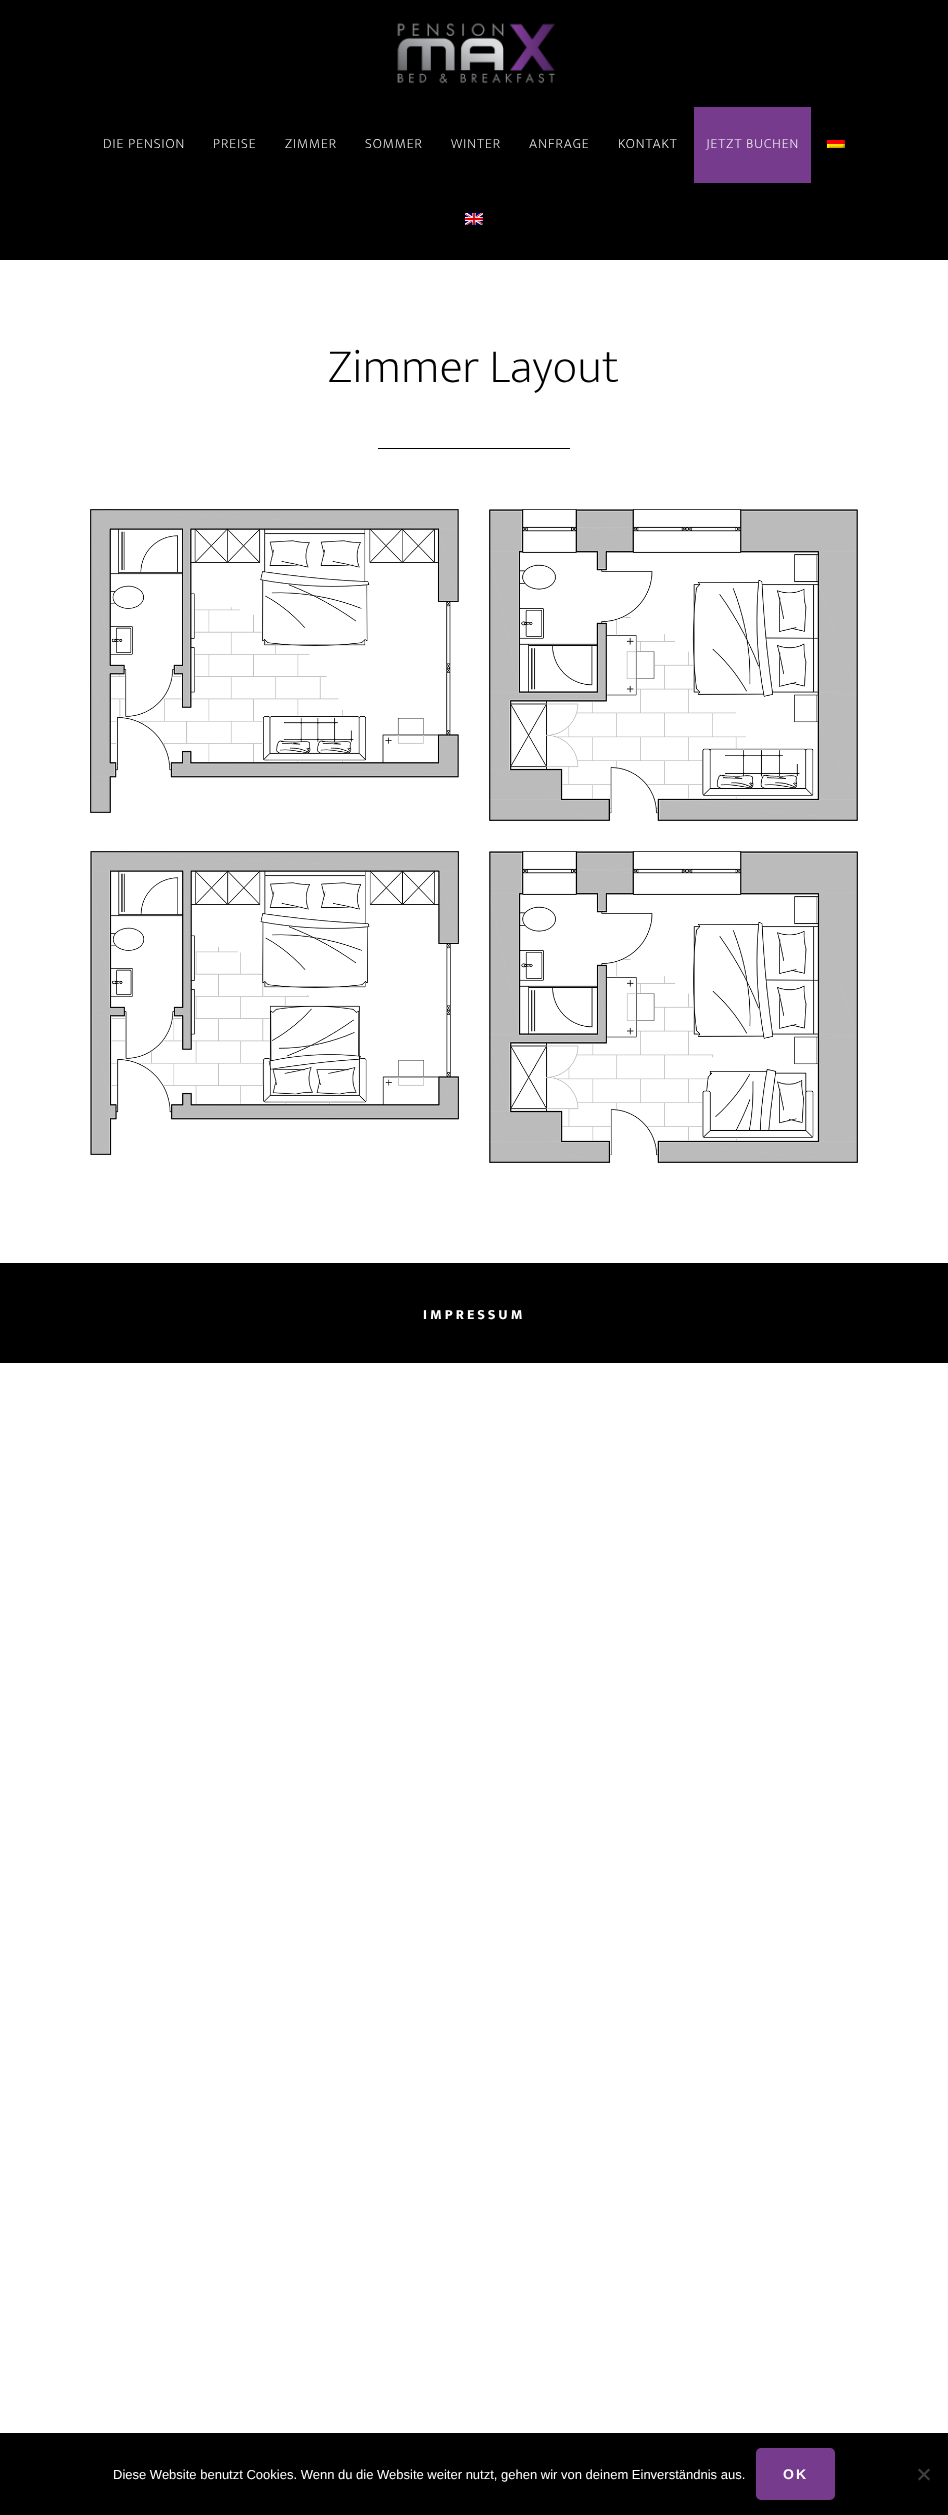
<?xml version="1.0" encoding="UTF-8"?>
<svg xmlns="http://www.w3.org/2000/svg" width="948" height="2515">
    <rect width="100%" height="100%" fill="#FFFFFF"/>
    <rect x="0" y="0" width="948" height="260" fill="#000000"/>
    <image x="397" y="22" width="159" height="62" href="img_01.png"/>
    <text x="103" y="148" font-family="Ek Mukta" font-size="14" font-weight="200" letter-spacing="1" fill="#FFFFFF">DIE PENSION</text>
    <text x="213" y="148" font-family="Ek Mukta" font-size="14" font-weight="200" letter-spacing="1" fill="#FFFFFF">PREISE</text>
    <text x="285" y="148" font-family="Ek Mukta" font-size="14" font-weight="200" letter-spacing="1" fill="#FFFFFF">ZIMMER</text>
    <text x="365" y="148" font-family="Ek Mukta" font-size="14" font-weight="200" letter-spacing="1" fill="#FFFFFF">SOMMER</text>
    <text x="451" y="148" font-family="Ek Mukta" font-size="14" font-weight="200" letter-spacing="1" fill="#FFFFFF">WINTER</text>
    <text x="529" y="148" font-family="Ek Mukta" font-size="14" font-weight="200" letter-spacing="1" fill="#FFFFFF">ANFRAGE</text>
    <text x="618" y="148" font-family="Ek Mukta" font-size="14" font-weight="200" letter-spacing="1" fill="#FFFFFF">KONTAKT</text>
    <rect x="694" y="107" width="117" height="76" fill="#763B8C"/>
    <text x="706" y="148" font-family="Ek Mukta" font-size="14" font-weight="200" letter-spacing="1" fill="#FFFFFF">JETZT BUCHEN</text>
    <image x="827" y="140" width="18" height="8" href="img_02.png"/>
    <image x="465" y="213" width="18" height="12" href="img_03.png"/>
    <text x="328" y="382" font-family="Ek Mukta" font-size="48" font-weight="200" fill="#000000">Zimmer Layout</text>
    <rect x="378" y="448" width="192" height="1" fill="#000000"/>
    <image x="90" y="509" width="369" height="304" href="img_04.png"/>
    <image x="489" y="509" width="369" height="312" href="img_05.png"/>
    <image x="90" y="851" width="369" height="304" href="img_06.png"/>
    <image x="489" y="851" width="369" height="312" href="img_07.png"/>
    <rect x="0" y="1263" width="948" height="100" fill="#000000"/>
    <text x="423" y="1319" font-family="Ek Mukta" font-size="14" font-weight="800" letter-spacing="3" fill="#FFFFFF">IMPRESSUM</text>
    <rect x="0" y="2433" width="948" height="82" fill="#000000"/>
    <text x="113" y="2479" font-family="Liberation Sans" font-size="13" fill="#FFFFFF">Diese Website benutzt Cookies. Wenn du die Website weiter nutzt, gehen wir von deinem Einverständnis aus.</text>
    <rect x="757" y="2449" width="77" height="50" rx="4" fill="#763B8C" stroke="#763B8C" stroke-width="2"/>
    <text x="783" y="2479" font-family="Liberation Sans" font-size="14" font-weight="700" letter-spacing="2" fill="#FFFFFF">OK</text>
    <path d="M 928.5 2468.5 L 930 2470 L 919.5 2480.5 L 918 2479 Z" fill="#404040"/>
    <path d="M 918 2470 L 919.5 2468.5 L 930 2479 L 928.5 2480.5 Z" fill="#404040"/>
</svg>
